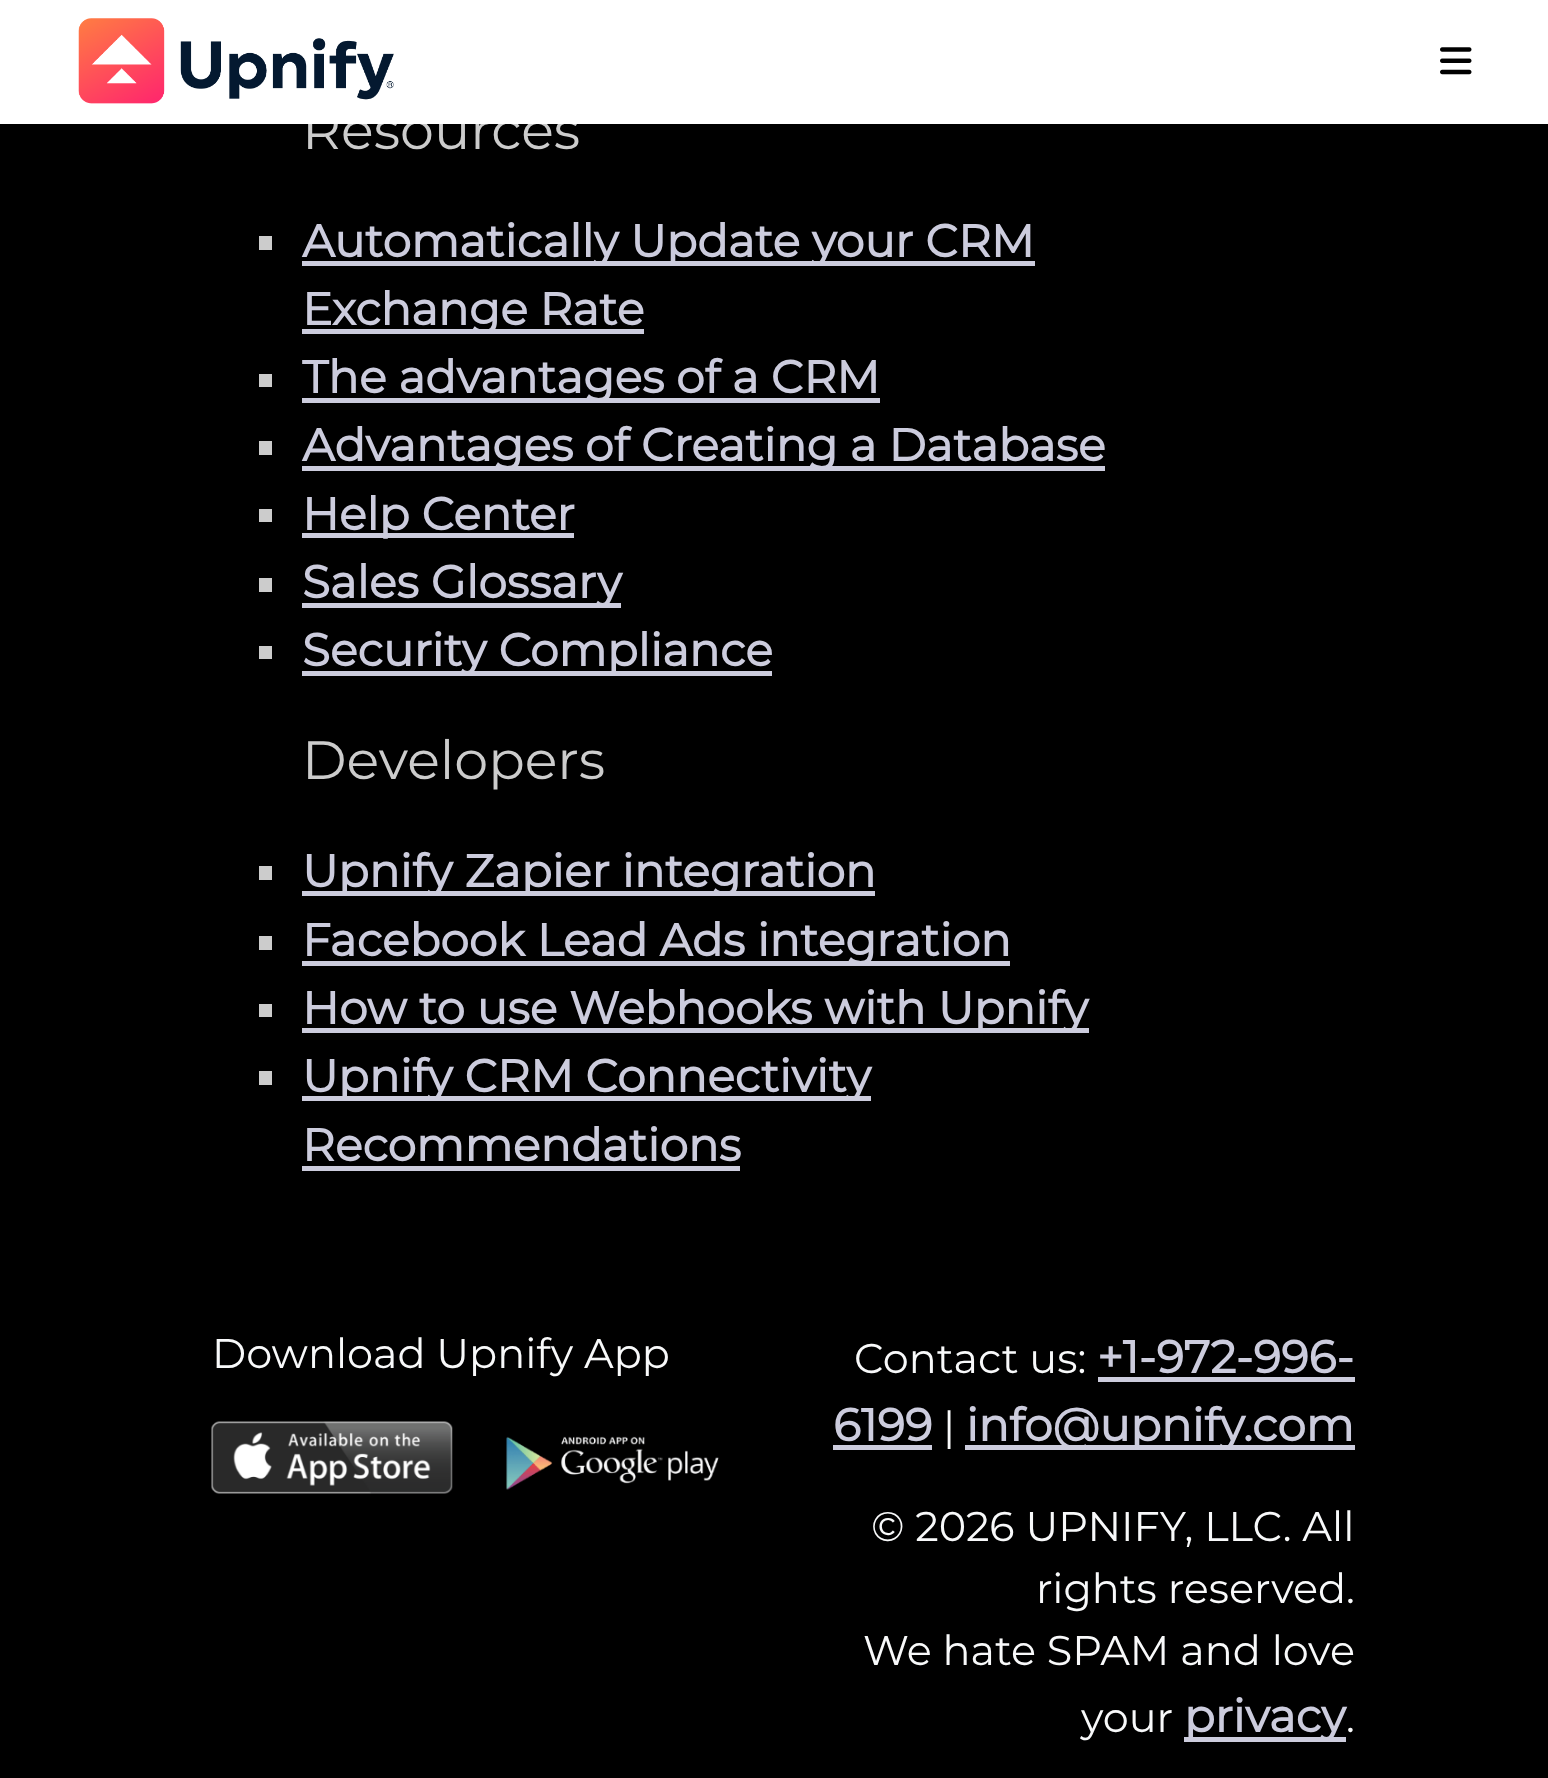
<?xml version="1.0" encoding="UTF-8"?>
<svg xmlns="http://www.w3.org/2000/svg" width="1548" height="1778">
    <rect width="100%" height="100%" fill="#000000"/>
    <text x="302" y="149" font-family="Montserrat" font-size="54" fill="#CCCCCC">Resources</text>
    <rect x="0" y="0" width="1548" height="124" fill="#FFFFFF"/>
    <image x="78" y="18" width="316" height="86" href="img_01.png"/>
    <image x="1440" y="47" width="32" height="28" href="img_02.png"/>
    <rect x="259" y="236" width="13" height="14" fill="#CCCCCC"/>
    <rect x="302" y="261" width="733" height="5" fill="#CCCCDD"/>
    <text x="302" y="257" font-family="Montserrat" font-size="45.5" font-weight="700" fill="#CCCCDD">Automatically Update your CRM</text>
    <rect x="302" y="329" width="342" height="5" fill="#CCCCDD"/>
    <text x="302" y="325" font-family="Montserrat" font-size="45.5" font-weight="700" fill="#CCCCDD">Exchange Rate</text>
    <rect x="259" y="374" width="13" height="13" fill="#CCCCCC"/>
    <rect x="302" y="398" width="578" height="5" fill="#CCCCDD"/>
    <text x="302" y="393" font-family="Montserrat" font-size="45.5" font-weight="700" fill="#CCCCDD">The advantages of a CRM</text>
    <rect x="259" y="441" width="13" height="14" fill="#CCCCCC"/>
    <rect x="302" y="466" width="803" height="5" fill="#CCCCDD"/>
    <text x="302" y="461" font-family="Montserrat" font-size="45.5" font-weight="700" fill="#CCCCDD">Advantages of Creating a Database</text>
    <rect x="259" y="509" width="13" height="13" fill="#CCCCCC"/>
    <rect x="302" y="533" width="272" height="5" fill="#CCCCDD"/>
    <text x="302" y="530" font-family="Montserrat" font-size="45.5" font-weight="700" fill="#CCCCDD">Help Center</text>
    <rect x="259" y="578" width="13" height="14" fill="#CCCCCC"/>
    <rect x="302" y="603" width="319" height="5" fill="#CCCCDD"/>
    <text x="302" y="598" font-family="Montserrat" font-size="45.5" font-weight="700" fill="#CCCCDD">Sales Glossary</text>
    <rect x="259" y="646" width="13" height="13" fill="#CCCCCC"/>
    <rect x="302" y="671" width="470" height="5" fill="#CCCCDD"/>
    <text x="302" y="666" font-family="Montserrat" font-size="45.5" font-weight="700" fill="#CCCCDD">Security Compliance</text>
    <text x="302" y="779" font-family="Montserrat" font-size="54" fill="#CCCCCC">Developers</text>
    <rect x="259" y="866" width="13" height="14" fill="#CCCCCC"/>
    <rect x="302" y="891" width="573" height="5" fill="#CCCCDD"/>
    <text x="302" y="887" font-family="Montserrat" font-size="45.5" font-weight="700" fill="#CCCCDD">Upnify Zapier integration</text>
    <rect x="259" y="936" width="13" height="14" fill="#CCCCCC"/>
    <rect x="302" y="961" width="708" height="5" fill="#CCCCDD"/>
    <text x="302" y="956" font-family="Montserrat" font-size="45.5" font-weight="700" fill="#CCCCDD">Facebook Lead Ads integration</text>
    <rect x="259" y="1004" width="13" height="13" fill="#CCCCCC"/>
    <rect x="302" y="1028" width="787" height="5" fill="#CCCCDD"/>
    <text x="302" y="1024" font-family="Montserrat" font-size="45.5" font-weight="700" fill="#CCCCDD">How to use Webhooks with Upnify</text>
    <rect x="259" y="1071" width="13" height="14" fill="#CCCCCC"/>
    <rect x="302" y="1096" width="569" height="5" fill="#CCCCDD"/>
    <text font-family="Montserrat" font-size="45.5" font-weight="700" fill="#CCCCDD">
        <tspan x="302" y="1092">Upnify CRM Connectivity</tspan>
        <tspan x="302" y="1161">Recommendations</tspan>
    </text>
    <rect x="302" y="1166" width="438" height="5" fill="#CCCCDD"/>
    <text x="212" y="1368" font-family="Montserrat" font-size="41.4" fill="#F8F9FA">Download Upnify App</text>
    <image x="211" y="1421" width="242" height="73" href="img_03.png"/>
    <image x="506" y="1436" width="213" height="54" href="img_04.png"/>
    <text x="854" y="1373" font-family="Montserrat" font-size="41.4" fill="#F8F9FA">Contact us:</text>
    <text x="1097" y="1373" font-family="Montserrat" font-size="45.5" font-weight="700" fill="#CCCCDD">+1-972-996-</text>
    <rect x="1098" y="1377" width="257" height="5" fill="#CCCCDD"/>
    <text x="833" y="1441" font-family="Montserrat" font-size="45.5" font-weight="700" fill="#CCCCDD">6199</text>
    <rect x="833" y="1445" width="99" height="5" fill="#CCCCDD"/>
    <text x="943" y="1441" font-family="Montserrat" font-size="41.4" fill="#F8F9FA">|</text>
    <rect x="965" y="1445" width="390" height="5" fill="#CCCCDD"/>
    <text x="966" y="1441" font-family="Montserrat" font-size="45.5" font-weight="700" fill="#CCCCDD">info@upnify.com</text>
    <text x="871" y="1541" font-family="Montserrat" font-size="41.4" fill="#F8F9FA">© 2026 UPNIFY, LLC. All</text>
    <text x="1036" y="1603" font-family="Montserrat" font-size="41.4" fill="#F8F9FA">rights reserved.</text>
    <text x="863" y="1665" font-family="Montserrat" font-size="41.4" fill="#F8F9FA">We hate SPAM and love</text>
    <text x="1081" y="1732" font-family="Montserrat" font-size="41.4" fill="#F8F9FA">your</text>
    <rect x="1184" y="1737" width="162" height="5" fill="#CCCCDD"/>
    <text x="1184" y="1732" font-family="Montserrat" font-size="45.5" font-weight="700" fill="#CCCCDD">privacy</text>
    <text x="1346" y="1732" font-family="Montserrat" font-size="41.4" fill="#F8F9FA">.</text>
</svg>
